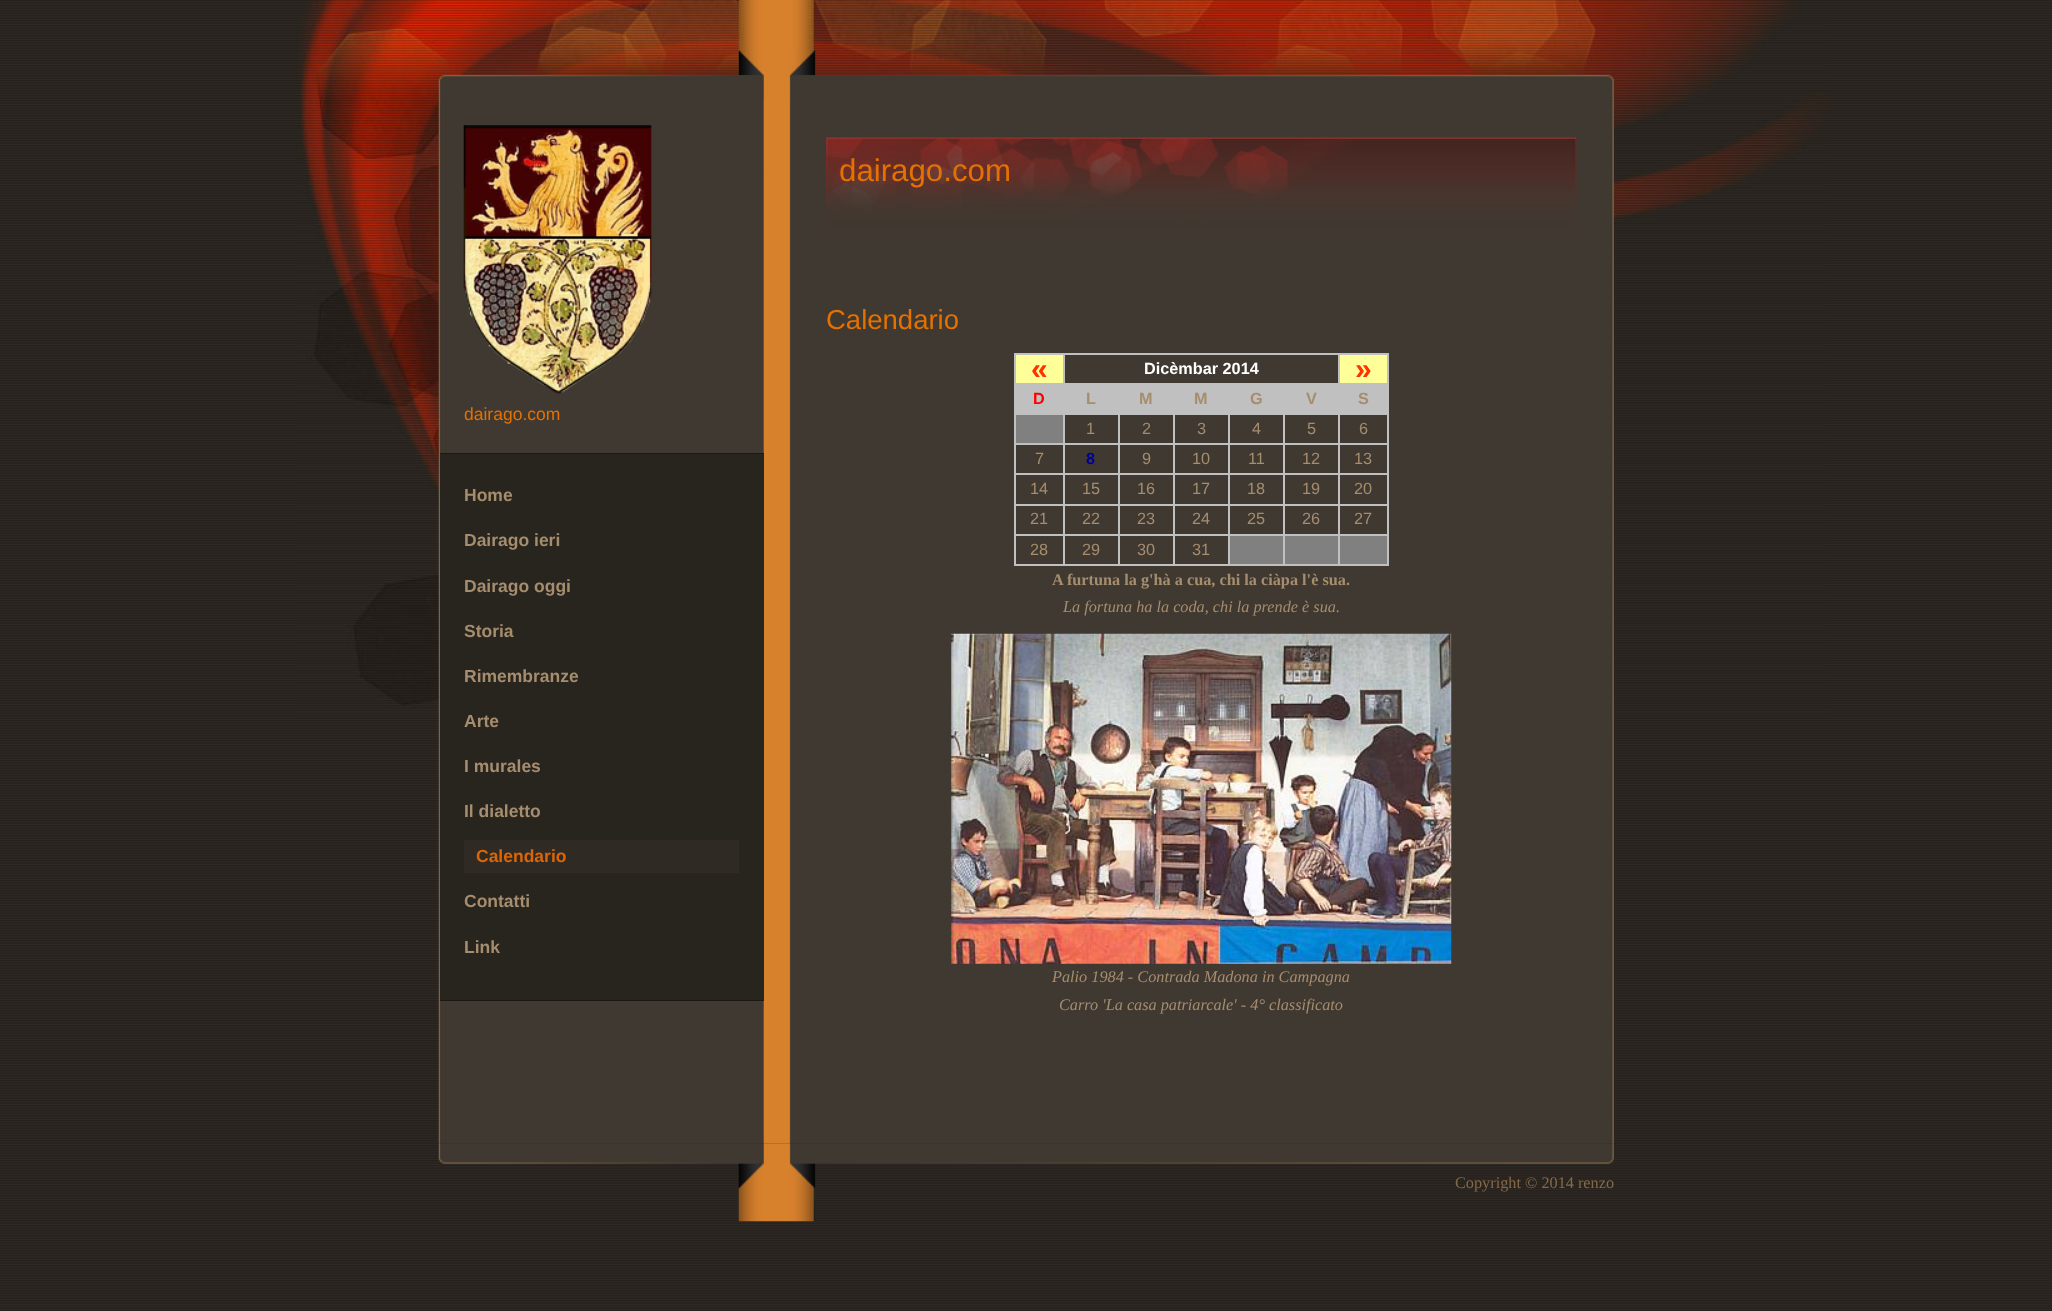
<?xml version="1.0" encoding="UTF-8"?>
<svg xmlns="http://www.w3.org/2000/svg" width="2052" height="1311">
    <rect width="100%" height="100%" fill="#FFFFFF"/>
    <image x="0" y="0" width="2052" height="1311" href="img_01.png"/>
    <image x="296" y="0" width="1531" height="713" href="img_02.png"/>
    <image x="438" y="50" width="1176" height="50" href="img_03.png"/>
    <image x="438" y="100" width="1176" height="1044" href="img_04.png"/>
    <image x="463" y="125" width="189" height="269" href="img_05.png"/>
    <text x="464" y="420" font-family="Liberation Sans" font-size="17.5" fill="#E47100">dairago.com</text>
    <rect x="440" y="454" width="324" height="546" fill="#28241E"/>
    <rect x="440" y="453" width="324" height="1" fill="#1C1914"/>
    <rect x="440" y="1000" width="324" height="1" fill="#1C1914"/>
    <text x="464" y="501" font-family="Liberation Sans" font-size="17.5" font-weight="700" fill="#A58D6E">Home</text>
    <text x="464" y="546" font-family="Liberation Sans" font-size="17.5" font-weight="700" fill="#A58D6E">Dairago ieri</text>
    <text x="464" y="592" font-family="Liberation Sans" font-size="17.5" font-weight="700" fill="#A58D6E">Dairago oggi</text>
    <text x="464" y="637" font-family="Liberation Sans" font-size="17.5" font-weight="700" fill="#A58D6E">Storia</text>
    <text x="464" y="682" font-family="Liberation Sans" font-size="17.5" font-weight="700" fill="#A58D6E">Rimembranze</text>
    <text x="464" y="727" font-family="Liberation Sans" font-size="17.5" font-weight="700" fill="#A58D6E">Arte</text>
    <text x="464" y="772" font-family="Liberation Sans" font-size="17.5" font-weight="700" fill="#A58D6E">I murales</text>
    <text x="464" y="817" font-family="Liberation Sans" font-size="17.5" font-weight="700" fill="#A58D6E">Il dialetto</text>
    <rect x="464" y="840" width="275" height="33" fill="#2F2A23"/>
    <text x="476" y="862" font-family="Liberation Sans" font-size="17.5" font-weight="700" fill="#DC6606">Calendario</text>
    <text x="464" y="907" font-family="Liberation Sans" font-size="17.5" font-weight="700" fill="#A58D6E">Contatti</text>
    <text x="464" y="953" font-family="Liberation Sans" font-size="17.5" font-weight="700" fill="#A58D6E">Link</text>
    <image x="826" y="137" width="751" height="91" href="img_06.png"/>
    <text x="839" y="181" font-family="Liberation Sans" font-size="31.25" fill="#E47100">dairago.com</text>
    <text x="826" y="329" font-family="Liberation Sans" font-size="27.5" fill="#E47100">Calendario</text>
    <rect x="1014.5" y="353.5" width="374" height="212" fill="none" stroke="#C0C0C0"/>
    <rect x="1015.5" y="354.5" width="48" height="29" fill="#FFFF99" stroke="#C0C0C0"/>
    <text x="1031" y="379" font-family="Liberation Sans" font-size="30" font-weight="700" fill="#FF3300">«</text>
    <rect x="1064.5" y="354.5" width="274" height="29" fill="none" stroke="#C0C0C0"/>
    <text x="1144" y="374" font-family="Liberation Sans" font-size="16.25" font-weight="700" fill="#FFFFFF">Dicèmbar 2014</text>
    <rect x="1339.5" y="354.5" width="48" height="29" fill="#FFFF99" stroke="#C0C0C0"/>
    <text x="1355" y="379" font-family="Liberation Sans" font-size="30" font-weight="700" fill="#FF3300">»</text>
    <rect x="1015" y="384" width="373" height="30" fill="#C0C0C0"/>
    <text x="1033" y="404" font-family="Liberation Sans" font-size="16.25" font-weight="700" fill="#FF0000">D</text>
    <text x="1086" y="404" font-family="Liberation Sans" font-size="16.25" font-weight="700" fill="#A58D6E">L</text>
    <text x="1139" y="404" font-family="Liberation Sans" font-size="16.25" font-weight="700" fill="#A58D6E">M</text>
    <text x="1194" y="404" font-family="Liberation Sans" font-size="16.25" font-weight="700" fill="#A58D6E">M</text>
    <text x="1250" y="404" font-family="Liberation Sans" font-size="16.25" font-weight="700" fill="#A58D6E">G</text>
    <text x="1306" y="404" font-family="Liberation Sans" font-size="16.25" font-weight="700" fill="#A58D6E">V</text>
    <text x="1358" y="404" font-family="Liberation Sans" font-size="16.25" font-weight="700" fill="#A58D6E">S</text>
    <rect x="1015.5" y="414.5" width="48" height="29" fill="#808080" stroke="#C0C0C0"/>
    <rect x="1064.5" y="414.5" width="54" height="29" fill="none" stroke="#C0C0C0"/>
    <text x="1086" y="434" font-family="Liberation Sans" font-size="16.25" fill="#A58D6E">1</text>
    <rect x="1119.5" y="414.5" width="54" height="29" fill="none" stroke="#C0C0C0"/>
    <text x="1142" y="434" font-family="Liberation Sans" font-size="16.25" fill="#A58D6E">2</text>
    <rect x="1174.5" y="414.5" width="54" height="29" fill="none" stroke="#C0C0C0"/>
    <text x="1197" y="434" font-family="Liberation Sans" font-size="16.25" fill="#A58D6E">3</text>
    <rect x="1229.5" y="414.5" width="54" height="29" fill="none" stroke="#C0C0C0"/>
    <text x="1252" y="434" font-family="Liberation Sans" font-size="16.25" fill="#A58D6E">4</text>
    <rect x="1284.5" y="414.5" width="54" height="29" fill="none" stroke="#C0C0C0"/>
    <text x="1307" y="434" font-family="Liberation Sans" font-size="16.25" fill="#A58D6E">5</text>
    <rect x="1339.5" y="414.5" width="48" height="29" fill="none" stroke="#C0C0C0"/>
    <text x="1359" y="434" font-family="Liberation Sans" font-size="16.25" fill="#A58D6E">6</text>
    <rect x="1015.5" y="444.5" width="48" height="29" fill="none" stroke="#C0C0C0"/>
    <text x="1035" y="464" font-family="Liberation Sans" font-size="16.25" fill="#A58D6E">7</text>
    <rect x="1064.5" y="444.5" width="54" height="29" fill="none" stroke="#C0C0C0"/>
    <text x="1086" y="464" font-family="Liberation Sans" font-size="16.25" font-weight="700" fill="#000099">8</text>
    <rect x="1119.5" y="444.5" width="54" height="29" fill="none" stroke="#C0C0C0"/>
    <text x="1142" y="464" font-family="Liberation Sans" font-size="16.25" fill="#A58D6E">9</text>
    <rect x="1174.5" y="444.5" width="54" height="29" fill="none" stroke="#C0C0C0"/>
    <text x="1192" y="464" font-family="Liberation Sans" font-size="16.25" fill="#A58D6E">10</text>
    <rect x="1229.5" y="444.5" width="54" height="29" fill="none" stroke="#C0C0C0"/>
    <text x="1248" y="464" font-family="Liberation Sans" font-size="16.25" fill="#A58D6E">11</text>
    <rect x="1284.5" y="444.5" width="54" height="29" fill="none" stroke="#C0C0C0"/>
    <text x="1302" y="464" font-family="Liberation Sans" font-size="16.25" fill="#A58D6E">12</text>
    <rect x="1339.5" y="444.5" width="48" height="29" fill="none" stroke="#C0C0C0"/>
    <text x="1354" y="464" font-family="Liberation Sans" font-size="16.25" fill="#A58D6E">13</text>
    <rect x="1015.5" y="474.5" width="48" height="30" fill="none" stroke="#C0C0C0"/>
    <text x="1030" y="494" font-family="Liberation Sans" font-size="16.25" fill="#A58D6E">14</text>
    <rect x="1064.5" y="474.5" width="54" height="30" fill="none" stroke="#C0C0C0"/>
    <text x="1082" y="494" font-family="Liberation Sans" font-size="16.25" fill="#A58D6E">15</text>
    <rect x="1119.5" y="474.5" width="54" height="30" fill="none" stroke="#C0C0C0"/>
    <text x="1137" y="494" font-family="Liberation Sans" font-size="16.25" fill="#A58D6E">16</text>
    <rect x="1174.5" y="474.5" width="54" height="30" fill="none" stroke="#C0C0C0"/>
    <text x="1192" y="494" font-family="Liberation Sans" font-size="16.25" fill="#A58D6E">17</text>
    <rect x="1229.5" y="474.5" width="54" height="30" fill="none" stroke="#C0C0C0"/>
    <text x="1247" y="494" font-family="Liberation Sans" font-size="16.25" fill="#A58D6E">18</text>
    <rect x="1284.5" y="474.5" width="54" height="30" fill="none" stroke="#C0C0C0"/>
    <text x="1302" y="494" font-family="Liberation Sans" font-size="16.25" fill="#A58D6E">19</text>
    <rect x="1339.5" y="474.5" width="48" height="30" fill="none" stroke="#C0C0C0"/>
    <text x="1354" y="494" font-family="Liberation Sans" font-size="16.25" fill="#A58D6E">20</text>
    <rect x="1015.5" y="505.5" width="48" height="29" fill="none" stroke="#C0C0C0"/>
    <text x="1030" y="524" font-family="Liberation Sans" font-size="16.25" fill="#A58D6E">21</text>
    <rect x="1064.5" y="505.5" width="54" height="29" fill="none" stroke="#C0C0C0"/>
    <text x="1082" y="524" font-family="Liberation Sans" font-size="16.25" fill="#A58D6E">22</text>
    <rect x="1119.5" y="505.5" width="54" height="29" fill="none" stroke="#C0C0C0"/>
    <text x="1137" y="524" font-family="Liberation Sans" font-size="16.25" fill="#A58D6E">23</text>
    <rect x="1174.5" y="505.5" width="54" height="29" fill="none" stroke="#C0C0C0"/>
    <text x="1192" y="524" font-family="Liberation Sans" font-size="16.25" fill="#A58D6E">24</text>
    <rect x="1229.5" y="505.5" width="54" height="29" fill="none" stroke="#C0C0C0"/>
    <text x="1247" y="524" font-family="Liberation Sans" font-size="16.25" fill="#A58D6E">25</text>
    <rect x="1284.5" y="505.5" width="54" height="29" fill="none" stroke="#C0C0C0"/>
    <text x="1302" y="524" font-family="Liberation Sans" font-size="16.25" fill="#A58D6E">26</text>
    <rect x="1339.5" y="505.5" width="48" height="29" fill="none" stroke="#C0C0C0"/>
    <text x="1354" y="524" font-family="Liberation Sans" font-size="16.25" fill="#A58D6E">27</text>
    <rect x="1015.5" y="535.5" width="48" height="29" fill="none" stroke="#C0C0C0"/>
    <text x="1030" y="555" font-family="Liberation Sans" font-size="16.25" fill="#A58D6E">28</text>
    <rect x="1064.5" y="535.5" width="54" height="29" fill="none" stroke="#C0C0C0"/>
    <text x="1082" y="555" font-family="Liberation Sans" font-size="16.25" fill="#A58D6E">29</text>
    <rect x="1119.5" y="535.5" width="54" height="29" fill="none" stroke="#C0C0C0"/>
    <text x="1137" y="555" font-family="Liberation Sans" font-size="16.25" fill="#A58D6E">30</text>
    <rect x="1174.5" y="535.5" width="54" height="29" fill="none" stroke="#C0C0C0"/>
    <text x="1192" y="555" font-family="Liberation Sans" font-size="16.25" fill="#A58D6E">31</text>
    <rect x="1229.5" y="535.5" width="54" height="29" fill="#808080" stroke="#C0C0C0"/>
    <rect x="1284.5" y="535.5" width="54" height="29" fill="#808080" stroke="#C0C0C0"/>
    <rect x="1339.5" y="535.5" width="48" height="29" fill="#808080" stroke="#C0C0C0"/>
    <text x="1052" y="585" font-family="Liberation Serif" font-size="16.25" font-weight="700" fill="#A58D6E">A furtuna la g'hà a cua, chi la ciàpa l'è sua.</text>
    <text x="1063" y="612" font-family="Liberation Serif" font-size="16.25" font-style="italic" fill="#A58D6E">La fortuna ha la coda, chi la prende è sua.</text>
    <image x="951" y="633" width="501" height="331" href="img_07.png"/>
    <text x="1052" y="982" font-family="Liberation Serif" font-size="16.25" font-style="italic" fill="#A58D6E">Palio 1984 - Contrada Madona in Campagna</text>
    <text x="1059" y="1010" font-family="Liberation Serif" font-size="16.25" font-style="italic" fill="#A58D6E">Carro 'La casa patriarcale' - 4° classificato</text>
    <image x="438" y="1143" width="1176" height="79" href="img_08.png"/>
    <text x="1455" y="1188" font-family="Liberation Serif" font-size="16.25" fill="#856A47">Copyright © 2014 renzo</text>
</svg>
